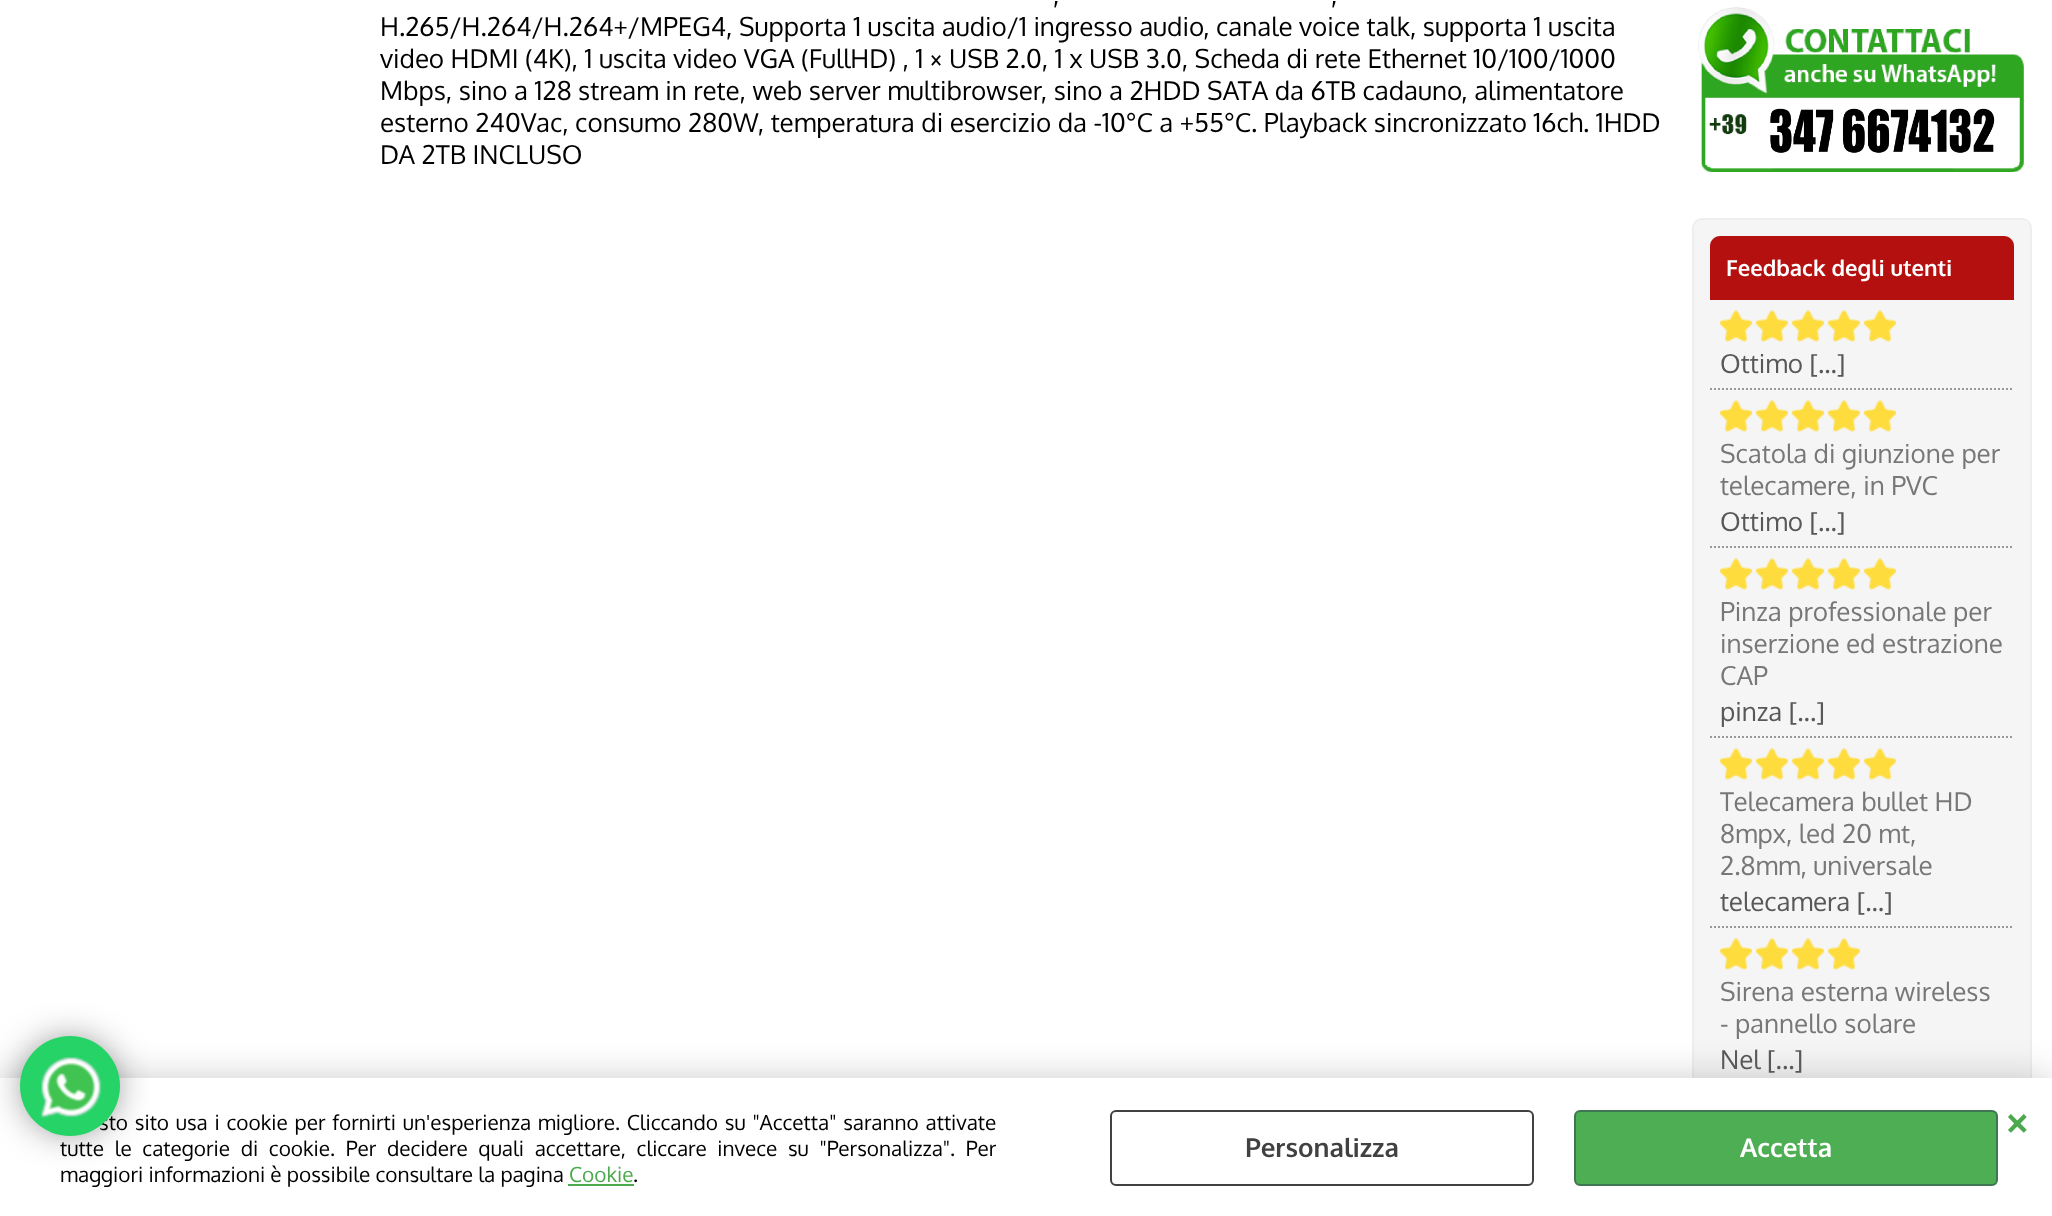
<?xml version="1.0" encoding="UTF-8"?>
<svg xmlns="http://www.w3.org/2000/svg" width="2052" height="1216">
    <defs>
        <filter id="blur1" x="-50%" y="-200%" width="200%" height="500%"><feGaussianBlur stdDeviation="18"/></filter>
        <filter id="blur2" x="-50%" y="-200%" width="200%" height="500%"><feGaussianBlur stdDeviation="20"/></filter>
    </defs>
    <rect width="100%" height="100%" fill="#FFFFFF"/>
    <rect x="1693" y="219" width="338" height="920" rx="9" fill="#F5F5F5" stroke="#EEEEEE" stroke-width="2"/>
    <rect x="0" y="1078" width="2052" height="138" fill="#000000" fill-opacity="0.2" filter="url(#blur1)"/>
    <rect x="0" y="1078" width="2052" height="138" fill="#FFFFFF"/>
    <rect x="30" y="1046" width="80" height="80" rx="40" fill="#000000" fill-opacity="0.7" filter="url(#blur2)"/>
    <text x="99" y="1130" word-spacing="1.6" font-family="Oxygen" font-size="20.8" fill="#000000">sto sito usa i cookie per fornirti un'esperienza migliore. Cliccando su "Accetta" saranno attivate</text>
    <circle cx="70" cy="1086" r="50" fill="#25D366"/>
    <image x="41" y="1057" width="61" height="62" href="img_01.png"/>
    <text x="1053" y="4" font-family="Oxygen" font-size="26" fill="#000000">,</text>
    <text x="1331" y="4" font-family="Oxygen" font-size="26" fill="#000000">,</text>
    <text font-family="Oxygen" font-size="26" fill="#000000">
        <tspan x="380" y="36">H.265/H.264/H.264+/MPEG4, Supporta 1 uscita audio/1 ingresso audio, canale voice talk, supporta 1 uscita</tspan>
        <tspan x="380" y="68">video HDMI (4K), 1 uscita video VGA (FullHD) , 1 × USB 2.0, 1 x USB 3.0, Scheda di rete Ethernet 10/100/1000</tspan>
        <tspan x="380" y="100">Mbps, sino a 128 stream in rete, web server multibrowser, sino a 2HDD SATA da 6TB cadauno, alimentatore</tspan>
        <tspan x="380" y="132">esterno 240Vac, consumo 280W, temperatura di esercizio da -10°C a +55°C. Playback sincronizzato 16ch. 1HDD</tspan>
        <tspan x="380" y="164">DA 2TB INCLUSO</tspan>
    </text>
    <image x="1698" y="7" width="326" height="165" href="img_02.png"/>
    <path d="M 1720 236 H 2004 C 2009.5 236 2014 240.5 2014 246 V 300 H 1710 V 246 C 1710 240.5 1714.5 236 1720 236 Z" fill="#B51010"/>
    <text x="1726" y="276" font-family="Oxygen" font-size="22.1" font-weight="700" fill="#FFFFFF">Feedback degli utenti</text>
    <path d="M 1710 389 H 2014" fill="none" stroke="#999999" stroke-width="2" stroke-dasharray="2 2"/>
    <image x="1720" y="310" width="32" height="32" href="img_03.png"/>
    <image x="1756" y="310" width="32" height="32" href="img_03.png"/>
    <image x="1792" y="310" width="32" height="32" href="img_03.png"/>
    <image x="1828" y="310" width="32" height="32" href="img_03.png"/>
    <image x="1864" y="310" width="32" height="32" href="img_03.png"/>
    <text x="1720" y="373" font-family="Oxygen" font-size="26" fill="#585858">Ottimo [...]</text>
    <path d="M 1710 547 H 2014" fill="none" stroke="#999999" stroke-width="2" stroke-dasharray="2 2"/>
    <image x="1720" y="400" width="32" height="32" href="img_03.png"/>
    <image x="1756" y="400" width="32" height="32" href="img_03.png"/>
    <image x="1792" y="400" width="32" height="32" href="img_03.png"/>
    <image x="1828" y="400" width="32" height="32" href="img_03.png"/>
    <image x="1864" y="400" width="32" height="32" href="img_03.png"/>
    <text font-family="Oxygen" font-size="26" fill="#777777">
        <tspan x="1720" y="463">Scatola di giunzione per</tspan>
        <tspan x="1720" y="495">telecamere, in PVC</tspan>
    </text>
    <text x="1720" y="531" font-family="Oxygen" font-size="26" fill="#585858">Ottimo [...]</text>
    <path d="M 1710 737 H 2014" fill="none" stroke="#999999" stroke-width="2" stroke-dasharray="2 2"/>
    <image x="1720" y="558" width="32" height="32" href="img_03.png"/>
    <image x="1756" y="558" width="32" height="32" href="img_03.png"/>
    <image x="1792" y="558" width="32" height="32" href="img_03.png"/>
    <image x="1828" y="558" width="32" height="32" href="img_03.png"/>
    <image x="1864" y="558" width="32" height="32" href="img_03.png"/>
    <text font-family="Oxygen" font-size="26" fill="#777777">
        <tspan x="1720" y="621">Pinza professionale per</tspan>
        <tspan x="1720" y="653">inserzione ed estrazione</tspan>
        <tspan x="1720" y="685">CAP</tspan>
    </text>
    <text x="1720" y="721" font-family="Oxygen" font-size="26" fill="#585858">pinza [...]</text>
    <path d="M 1710 927 H 2014" fill="none" stroke="#999999" stroke-width="2" stroke-dasharray="2 2"/>
    <image x="1720" y="748" width="32" height="32" href="img_03.png"/>
    <image x="1756" y="748" width="32" height="32" href="img_03.png"/>
    <image x="1792" y="748" width="32" height="32" href="img_03.png"/>
    <image x="1828" y="748" width="32" height="32" href="img_03.png"/>
    <image x="1864" y="748" width="32" height="32" href="img_03.png"/>
    <text font-family="Oxygen" font-size="26" fill="#777777">
        <tspan x="1720" y="811">Telecamera bullet HD</tspan>
        <tspan x="1720" y="843">8mpx, led 20 mt,</tspan>
        <tspan x="1720" y="875">2.8mm, universale</tspan>
    </text>
    <text x="1720" y="911" font-family="Oxygen" font-size="26" fill="#585858">telecamera [...]</text>
    <image x="1720" y="938" width="32" height="32" href="img_03.png"/>
    <image x="1756" y="938" width="32" height="32" href="img_03.png"/>
    <image x="1792" y="938" width="32" height="32" href="img_03.png"/>
    <image x="1828" y="938" width="32" height="32" href="img_03.png"/>
    <text font-family="Oxygen" font-size="26" fill="#777777">
        <tspan x="1720" y="1001">Sirena esterna wireless</tspan>
        <tspan x="1720" y="1033">- pannello solare</tspan>
    </text>
    <text x="1720" y="1069" font-family="Oxygen" font-size="26" fill="#585858">Nel [...]</text>
    <text font-family="Oxygen" font-size="20.8" fill="#000000">
        <tspan x="60" y="1156" word-spacing="5.5">tutte le categorie di cookie. Per decidere quali accettare, cliccare invece su "Personalizza". Per</tspan>
        <tspan x="60" y="1182">maggiori informazioni è possibile consultare la pagina</tspan>
    </text>
    <text x="569" y="1182" font-family="Oxygen" font-size="20.8" fill="#4DA94D">Cookie</text>
    <rect x="568" y="1184" width="66" height="2" fill="#4DA94D"/>
    <text x="633" y="1182" font-family="Oxygen" font-size="20.8" fill="#000000">.</text>
    <text x="2002" y="1136" font-family="Oxygen" font-size="44" font-weight="700" fill="#4DA94D">×</text>
    <rect x="1111" y="1111" width="422" height="74" rx="5" fill="none" stroke="#424141" stroke-width="2"/>
    <text x="1245" y="1157" font-family="Oxygen" font-size="26" font-weight="700" fill="#424141">Personalizza</text>
    <rect x="1575" y="1111" width="422" height="74" rx="5" fill="#4EAE54" stroke="#3F7755" stroke-width="2"/>
    <text x="1740" y="1157" font-family="Oxygen" font-size="26" font-weight="700" fill="#FFFFFF">Accetta</text>
</svg>
